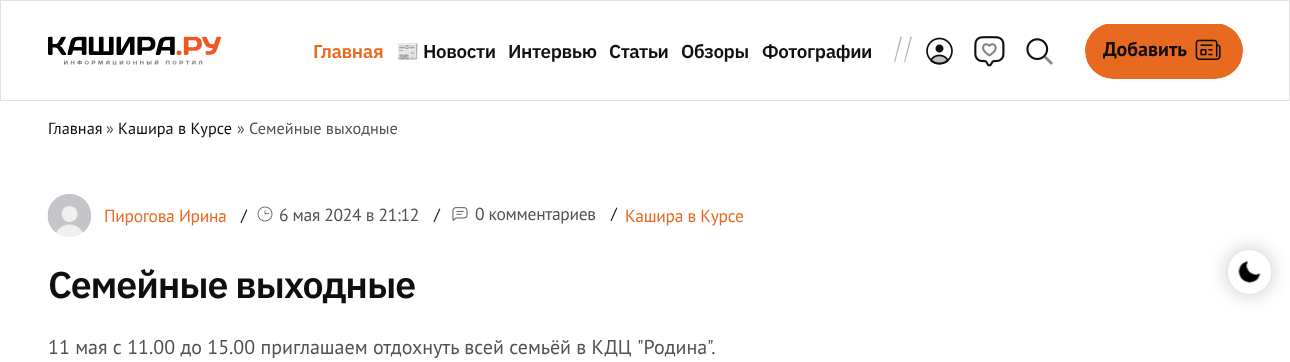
<?xml version="1.0" encoding="UTF-8"?>
<svg xmlns="http://www.w3.org/2000/svg" width="1290" height="362">
    <defs>
        <clipPath id="clip1"><rect x="1085" y="23" width="158" height="56" rx="28"/></clipPath>
        <filter id="blur1" x="-50%" y="-200%" width="200%" height="500%"><feGaussianBlur stdDeviation="9.5"/></filter>
    </defs>
    <rect width="100%" height="100%" fill="#FFFFFF"/>
    <rect x="0.5" y="0.5" width="1289" height="100" fill="none" stroke="#DEE2E6"/>
    <image x="48" y="36" width="173" height="29" href="img_01.png"/>
    <text x="313" y="58" font-family="IBM Plex Sans" font-size="18.75" font-weight="600" letter-spacing="-0.4" fill="#E86A20">Главная</text>
    <text x="396" y="58" font-family="Noto Color Emoji" font-size="18.75" font-weight="700" letter-spacing="-0.4" fill="#0F0F0F">📰</text>
    <text x="423" y="58" font-family="IBM Plex Sans" font-size="18.75" font-weight="600" letter-spacing="-0.4" fill="#0F0F0F">Новости</text>
    <text x="508" y="58" font-family="IBM Plex Sans" font-size="18.75" font-weight="600" letter-spacing="-0.4" fill="#0F0F0F">Интервью</text>
    <text x="609" y="58" font-family="IBM Plex Sans" font-size="18.75" font-weight="600" letter-spacing="-0.4" fill="#0F0F0F">Статьи</text>
    <text x="681" y="58" font-family="IBM Plex Sans" font-size="18.75" font-weight="600" letter-spacing="-0.4" fill="#0F0F0F">Обзоры</text>
    <text x="762" y="58" font-family="IBM Plex Sans" font-size="18.75" font-weight="600" letter-spacing="-0.4" fill="#0F0F0F">Фотографии</text>
    <path d="M 900.5 36.5 L 902 37 L 895 62.5 L 894 62 Z" fill="#B9B9B9"/>
    <path d="M 910.5 36.5 L 912 37 L 905 62.5 L 904 62 Z" fill="#B9B9B9"/>
    <image x="926" y="37" width="27" height="28" href="img_02.png"/>
    <image x="974" y="36" width="31" height="31" href="img_03.png"/>
    <image x="1026" y="38" width="27" height="27" href="img_04.png"/>
    <g clip-path="url(#clip1)">
        <path d="M 1085 24 H 1243 V 51 C 1243 66.5 1230.5 79 1215 79 H 1113 C 1097.5 79 1085 66.5 1085 51 Z" fill="#E86A20"/>
    </g>
    <text x="1103" y="56" font-family="PT Sans" font-size="20" font-weight="700" fill="#0F0F0F">Добавить</text>
    <image x="1195" y="39" width="26" height="21" href="img_05.png"/>
    <text x="48" y="134" font-family="PT Sans" font-size="16.25" fill="#0F0F0F">Главная</text>
    <text x="106" y="134" font-family="PT Sans" font-size="16.25" fill="#525252">»</text>
    <text x="118" y="134" font-family="PT Sans" font-size="16.25" fill="#0F0F0F">Кашира в Курсе</text>
    <text x="237" y="134" font-family="PT Sans" font-size="16.25" fill="#525252">» Семейные выходные</text>
    <image x="47" y="194" width="44" height="43" href="img_06.png"/>
    <text x="104" y="222" font-family="PT Sans" font-size="17.5" letter-spacing="-0.3" fill="#E86A20">Пирогова Ирина</text>
    <text x="241" y="221" font-family="PT Sans" font-size="16.25" letter-spacing="-0.3" fill="#0F0F0F">/</text>
    <image x="257" y="206" width="16" height="16" href="img_07.png"/>
    <text x="279" y="221" font-family="PT Sans" font-size="17.5" letter-spacing="-0.3" fill="#525252">6 мая 2024 в 21:12</text>
    <text x="434" y="220" font-family="PT Sans" font-size="16.25" letter-spacing="-0.3" fill="#0F0F0F">/</text>
    <image x="452" y="207" width="16" height="14" href="img_08.png"/>
    <text x="475" y="220" font-family="PT Sans" font-size="17.5" letter-spacing="-0.3" fill="#525252">0 комментариев</text>
    <text x="611" y="219" font-family="PT Sans" font-size="16.25" letter-spacing="-0.3" fill="#0F0F0F">/</text>
    <text x="625" y="222" font-family="PT Sans" font-size="17.5" letter-spacing="-0.3" fill="#E86A20">Кашира в Курсе</text>
    <text x="48" y="298" font-family="IBM Plex Sans" font-size="37.5" font-weight="600" letter-spacing="-1.1" fill="#0F0F0F">Семейные выходные</text>
    <text x="48" y="354" font-family="PT Sans" font-size="20" fill="#525252">11 мая с 11.00 до 15.00 приглашаем отдохнуть всей семьёй в КДЦ "Родина".</text>
    <rect x="1228" y="250" width="43" height="44" rx="21.5" fill="#202020" fill-opacity="0.24" filter="url(#blur1)"/>
    <rect x="1228" y="250" width="43" height="44" rx="21.5" fill="#FFFFFF"/>
    <image x="1238" y="261" width="23" height="22" href="img_09.png"/>
</svg>
